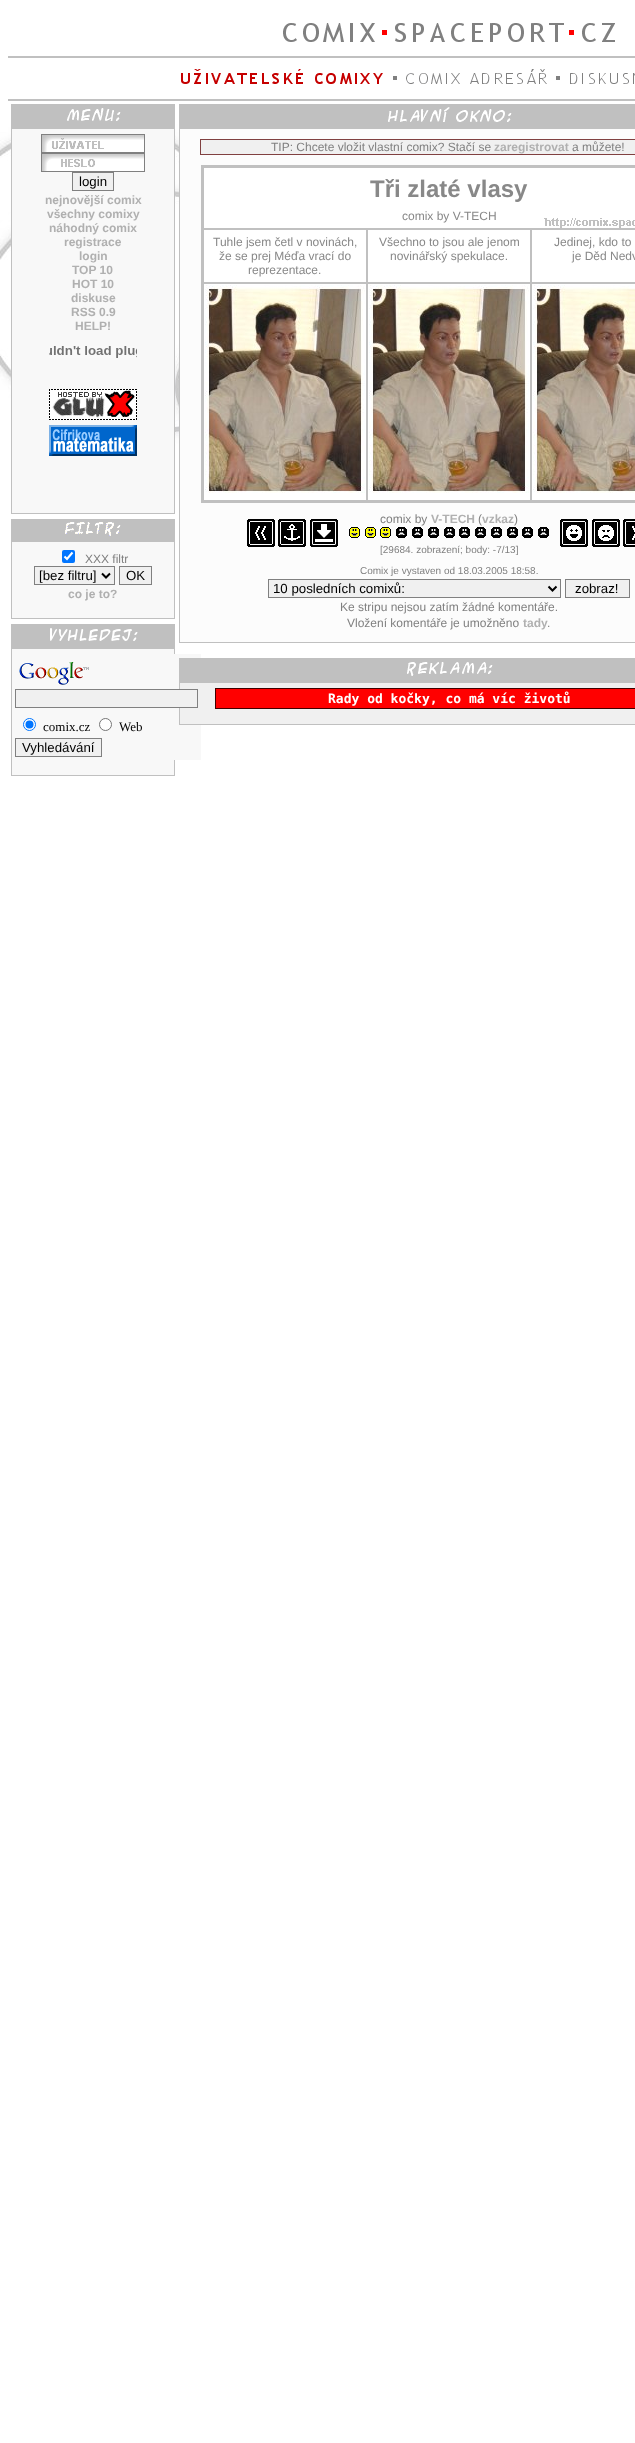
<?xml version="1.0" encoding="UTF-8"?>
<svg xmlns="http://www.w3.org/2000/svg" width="635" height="2443">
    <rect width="100%" height="100%" fill="#FFFFFF"/>
    <image x="0" y="116" width="179" height="392" href="img_01.png"/>
    <image x="283" y="23" width="332" height="19" href="img_02.png"/>
    <rect x="8" y="56" width="627" height="2" fill="#C0C0C0"/>
    <rect x="8" y="99" width="627" height="2" fill="#C0C0C0"/>
    <image x="181" y="69" width="202" height="15" href="img_03.png"/>
    <rect x="393" y="76" width="4" height="4" fill="#808080"/>
    <image x="406" y="69" width="141" height="15" href="img_04.png"/>
    <rect x="556" y="76" width="4" height="4" fill="#808080"/>
    <image x="570" y="73" width="65" height="11" href="img_05.png"/>
    <rect x="12" y="129" width="162" height="384" fill="#F8F8F8"/>
    <rect x="11.5" y="104.5" width="163" height="409" fill="none" stroke="#C0C0C0"/>
    <rect x="12" y="105" width="162" height="24" fill="#C0C0C0"/>
    <image x="67" y="108" width="54" height="13" href="img_06.png"/>
    <image x="42" y="135" width="102" height="17" href="img_07.png"/>
    <rect x="41.5" y="134.5" width="103" height="18" fill="none" stroke="#808080"/>
    <image x="42" y="154" width="102" height="17" href="img_08.png"/>
    <rect x="41.5" y="153.5" width="103" height="18" fill="none" stroke="#808080"/>
    <rect x="72.5" y="172.5" width="41" height="18" fill="#F0F0F0" stroke="#808080"/>
    <text x="79" y="186" font-family="Liberation Sans" font-size="13.25" fill="#000000">login</text>
    <text x="45" y="204" font-family="Liberation Sans" font-size="12" font-weight="700" fill="#B0B0B0">nejnovější comix</text>
    <text x="47" y="218" font-family="Liberation Sans" font-size="12" font-weight="700" fill="#B0B0B0">všechny comixy</text>
    <text x="49" y="232" font-family="Liberation Sans" font-size="12" font-weight="700" fill="#B0B0B0">náhodný comix</text>
    <text x="64" y="246" font-family="Liberation Sans" font-size="12" font-weight="700" fill="#B0B0B0">registrace</text>
    <text x="79" y="260" font-family="Liberation Sans" font-size="12" font-weight="700" fill="#B0B0B0">login</text>
    <text font-family="Liberation Sans" font-size="12" font-weight="700" fill="#B0B0B0">
        <tspan x="72" y="274">TOP 10</tspan>
        <tspan x="72" y="288">HOT 10</tspan>
    </text>
    <text font-family="Liberation Sans" font-size="12" font-weight="700" fill="#B0B0B0">
        <tspan x="71" y="302">diskuse</tspan>
        <tspan x="71" y="316">RSS 0.9</tspan>
    </text>
    <text x="75" y="330" font-family="Liberation Sans" font-size="12" font-weight="700" fill="#B0B0B0">HELP!</text>
    <image x="49" y="346" width="88" height="12" href="img_09.png"/>
    <image x="49" y="389" width="88" height="31" href="img_10.png"/>
    <image x="49" y="425" width="88" height="31" href="img_11.png"/>
    <rect x="12" y="542" width="162" height="76" fill="#F8F8F8"/>
    <rect x="11.5" y="519.5" width="163" height="99" fill="none" stroke="#C0C0C0"/>
    <rect x="12" y="520" width="162" height="22" fill="#C0C0C0"/>
    <image x="65" y="522" width="56" height="14" href="img_12.png"/>
    <rect x="62" y="550" width="13" height="13" rx="2" fill="#0075FF"/>
    <path d="M 64.5 556.5 L 67 559 L 72.5 552.5" fill="none" stroke="#FFFFFF" stroke-width="2.1"/>
    <text x="85" y="563" font-family="Liberation Sans" font-size="12" fill="#808080">XXX filtr</text>
    <rect x="34.5" y="566.5" width="80" height="18" fill="#F0F0F0" stroke="#808080"/>
    <path d="M 102 573.5 L 106 577.5 L 110 573.5" fill="none" stroke="#000000" stroke-width="2"/>
    <text x="39" y="580" font-family="Liberation Sans" font-size="13.25" fill="#000000">[bez filtru]</text>
    <rect x="119.5" y="566.5" width="32" height="18" fill="#F0F0F0" stroke="#808080"/>
    <text x="126" y="580" font-family="Liberation Sans" font-size="13.25" fill="#000000">OK</text>
    <text x="68" y="598" font-family="Liberation Sans" font-size="12" font-weight="700" fill="#B0B0B0">co je to?</text>
    <rect x="12" y="649" width="162" height="126" fill="#F8F8F8"/>
    <rect x="11.5" y="624.5" width="163" height="151" fill="none" stroke="#C0C0C0"/>
    <rect x="12" y="625" width="162" height="24" fill="#C0C0C0"/>
    <image x="50" y="628" width="88" height="13" href="img_13.png"/>
    <rect x="174" y="654" width="27" height="106" fill="#F8F8F8"/>
    <image x="19" y="662" width="70" height="23" href="img_14.png"/>
    <rect x="180" y="683" width="455" height="41" fill="#F0F0F0"/>
    <rect x="179.5" y="658.5" width="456" height="66" fill="none" stroke="#C0C0C0"/>
    <rect x="16" y="690" width="164" height="17" fill="#F0F0F0"/>
    <rect x="15.5" y="689.5" width="182" height="18" fill="none" stroke="#808080"/>
    <circle cx="29.5" cy="724.5" r="6" fill="#FFFFFF" stroke="#0075FF"/>
    <circle cx="29.5" cy="724.5" r="4" fill="#0075FF"/>
    <text x="43" y="731" font-family="Liberation Serif" font-size="13" fill="#000000">comix.cz</text>
    <circle cx="105.5" cy="724.5" r="6" fill="#FFFFFF" stroke="#767676"/>
    <text x="119" y="731" font-family="Liberation Serif" font-size="13" fill="#000000">Web</text>
    <rect x="15.5" y="738.5" width="86" height="18" fill="#F0F0F0" stroke="#808080"/>
    <text x="22" y="752" font-family="Liberation Sans" font-size="13.25" fill="#000000">Vyhledávání</text>
    <rect x="180" y="129" width="455" height="513" fill="#FCFCFC"/>
    <rect x="179.5" y="104.5" width="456" height="538" fill="none" stroke="#C0C0C0"/>
    <rect x="180" y="105" width="455" height="24" fill="#C0C0C0"/>
    <image x="388" y="107" width="124" height="15" href="img_15.png"/>
    <rect x="200.5" y="139.5" width="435" height="15" fill="#F0F0F0" stroke="#804040"/>
    <text x="271" y="151" font-family="Liberation Sans" font-size="12" fill="#808080">TIP: Chcete vložit vlastní comix? Stačí se</text>
    <text x="494" y="151" font-family="Liberation Sans" font-size="12" font-weight="700" fill="#B0B0B0">zaregistrovat</text>
    <text x="572" y="151" font-family="Liberation Sans" font-size="12" fill="#808080">a můžete!</text>
    <rect x="204" y="168" width="431" height="332" fill="#FFFFFF"/>
    <rect x="202" y="166" width="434" height="336" fill="none" stroke="#C0C0C0" stroke-width="2"/>
    <image x="544" y="218" width="91" height="10" href="img_16.png"/>
    <rect x="203.5" y="167.5" width="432" height="61" fill="none" stroke="#C0C0C0"/>
    <text x="370" y="197" font-family="Liberation Sans" font-size="24" font-weight="700" fill="#888888">Tři zlaté vlasy</text>
    <text x="402" y="220" font-family="Liberation Sans" font-size="12" fill="#888888">comix by V-TECH</text>
    <rect x="203.5" y="229.5" width="163" height="53" fill="none" stroke="#C0C0C0"/>
    <text x="213" y="246" font-family="Liberation Sans" font-size="12" fill="#888888">Tuhle jsem četl v novinách,</text>
    <text x="219" y="260" font-family="Liberation Sans" font-size="12" fill="#888888">že se prej Méďa vrací do</text>
    <text x="248" y="274" font-family="Liberation Sans" font-size="12" fill="#888888">reprezentace.</text>
    <rect x="367.5" y="229.5" width="163" height="53" fill="none" stroke="#C0C0C0"/>
    <text x="379" y="246" font-family="Liberation Sans" font-size="12" fill="#888888">Všechno to jsou ale jenom</text>
    <text x="390" y="260" font-family="Liberation Sans" font-size="12" fill="#888888">novinářský spekulace.</text>
    <rect x="531.5" y="229.5" width="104" height="53" fill="none" stroke="#C0C0C0"/>
    <text x="554" y="246" font-family="Liberation Sans" font-size="12" fill="#888888">Jedinej, kdo to</text>
    <text x="572" y="260" font-family="Liberation Sans" font-size="12" fill="#888888">je Děd Nedv</text>
    <rect x="203.5" y="283.5" width="163" height="217" fill="none" stroke="#C0C0C0"/>
    <image x="205" y="285" width="160" height="208" href="img_17.png"/>
    <rect x="367.5" y="283.5" width="163" height="217" fill="none" stroke="#C0C0C0"/>
    <image x="369" y="285" width="160" height="208" href="img_17.png"/>
    <rect x="531.5" y="283.5" width="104" height="217" fill="none" stroke="#C0C0C0"/>
    <image x="533" y="285" width="102" height="208" href="img_18.png"/>
    <image x="247" y="519" width="28" height="28" href="img_19.png"/>
    <image x="278" y="519" width="28" height="28" href="img_20.png"/>
    <image x="310" y="519" width="28" height="28" href="img_21.png"/>
    <text x="380" y="523" font-family="Liberation Sans" font-size="12" fill="#808080">comix by</text>
    <text x="431" y="523" font-family="Liberation Sans" font-size="12" font-weight="700" fill="#B0B0B0">V-TECH</text>
    <text x="478" y="523" font-family="Liberation Sans" font-size="12" fill="#808080">(</text>
    <text x="482" y="523" font-family="Liberation Sans" font-size="12" font-weight="700" fill="#B0B0B0">vzkaz</text>
    <text x="514" y="523" font-family="Liberation Sans" font-size="12" fill="#808080">)</text>
    <image x="349" y="527" width="11" height="11" href="img_22.png"/>
    <image x="365" y="527" width="11" height="11" href="img_22.png"/>
    <image x="380" y="527" width="11" height="11" href="img_22.png"/>
    <image x="396" y="527" width="11" height="11" href="img_23.png"/>
    <image x="412" y="527" width="11" height="11" href="img_23.png"/>
    <image x="428" y="527" width="11" height="11" href="img_23.png"/>
    <image x="444" y="527" width="11" height="11" href="img_23.png"/>
    <image x="459" y="527" width="11" height="11" href="img_23.png"/>
    <image x="475" y="527" width="11" height="11" href="img_23.png"/>
    <image x="491" y="527" width="11" height="11" href="img_23.png"/>
    <image x="507" y="527" width="11" height="11" href="img_23.png"/>
    <image x="522" y="527" width="11" height="11" href="img_23.png"/>
    <image x="538" y="527" width="11" height="11" href="img_23.png"/>
    <text x="380" y="553" font-family="Liberation Sans" font-size="10" fill="#808080">[29684. zobrazení; body: -7/13]</text>
    <image x="560" y="519" width="28" height="28" href="img_24.png"/>
    <image x="592" y="519" width="28" height="28" href="img_25.png"/>
    <image x="623" y="519" width="12" height="28" href="img_26.png"/>
    <text x="360" y="574" font-family="Liberation Sans" font-size="10" fill="#808080">Comix je vystaven od 18.03.2005 18:58.</text>
    <rect x="268.5" y="579.5" width="292" height="18" fill="#F0F0F0" stroke="#808080"/>
    <path d="M 548.5 586.5 L 552.5 590.5 L 556.5 586.5" fill="none" stroke="#000000" stroke-width="2"/>
    <text x="273" y="593" font-family="Liberation Sans" font-size="13.25" fill="#000000">10 posledních comixů:</text>
    <rect x="565.5" y="579.5" width="64" height="18" fill="#F0F0F0" stroke="#808080"/>
    <text x="575" y="593" font-family="Liberation Sans" font-size="13.25" fill="#000000">zobraz!</text>
    <text x="340" y="611" font-family="Liberation Sans" font-size="12" fill="#808080">Ke stripu nejsou zatím žádné komentáře.</text>
    <text x="347" y="627" font-family="Liberation Sans" font-size="12" fill="#808080">Vložení komentáře je umožněno</text>
    <text x="523" y="627" font-family="Liberation Sans" font-size="12" font-weight="700" fill="#B0B0B0">tady</text>
    <text x="547" y="627" font-family="Liberation Sans" font-size="12" fill="#808080">.</text>
    <rect x="180" y="659" width="455" height="24" fill="#C0C0C0"/>
    <image x="407" y="662" width="86" height="14" href="img_27.png"/>
    <rect x="215.5" y="688.5" width="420" height="20" fill="#FF0000" stroke="#400000"/>
    <text x="328" y="703" font-family="DejaVu Sans Mono" font-size="13" font-weight="700" fill="#FFFFFF">Rady od kočky, co má víc životů</text>
</svg>
